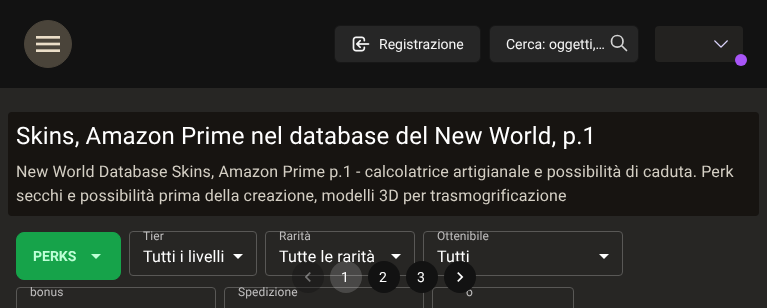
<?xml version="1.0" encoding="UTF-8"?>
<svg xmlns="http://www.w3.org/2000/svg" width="767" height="308">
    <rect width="100%" height="100%" fill="#272624"/>
    <rect x="0" y="0" width="767" height="88" fill="#121212"/>
    <circle cx="48" cy="44" r="23.5" fill="#4A443A" stroke="#4A443A"/>
    <image x="36" y="36" width="24" height="16" href="img_01.png"/>
    <rect x="334.5" y="25.5" width="146" height="37" rx="5.5" fill="#262626" stroke="#171717"/>
    <image x="352" y="36" width="18" height="16" href="img_02.png"/>
    <text x="379" y="49" font-family="Roboto" font-size="14" fill="#F5F5F5">Registrazione</text>
    <rect x="489.5" y="25.5" width="149" height="37" rx="5.5" fill="#262626" stroke="#171717"/>
    <text x="506" y="49" font-family="Roboto" font-size="14" fill="#F5F5F5">Cerca: oggetti,…</text>
    <path d="M 626.5 50.5 L 621.5 45.5 M 623 41.5 C 623 49 611.5 49 611.5 41.5 C 611.5 33.5 623 33.5 623 41.5 Z" fill="none" stroke="#D4D4D4" stroke-width="1.7" stroke-linecap="round" stroke-linejoin="round"/>
    <rect x="655" y="26" width="88" height="36" rx="4" fill="#232220"/>
    <image x="714" y="40" width="14" height="8" href="img_03.png"/>
    <circle cx="741" cy="60" r="6" fill="#A855F7"/>
    <rect x="8" y="112" width="751" height="104" rx="4" fill="#171411"/>
    <text x="16" y="144" font-family="Roboto" font-size="24" letter-spacing="0.15" fill="#FFFFFF">Skins, Amazon Prime nel database del New World, p.1</text>
    <text font-family="Roboto" font-size="16" letter-spacing="0.15" fill="#D4CFC4">
        <tspan x="16" y="177">New World Database Skins, Amazon Prime p.1 - calcolatrice artigianale e possibilità di caduta. Perk</tspan>
        <tspan x="16" y="201">secchi e possibilità prima della creazione, modelli 3D per trasmogrificazione</tspan>
    </text>
    <rect x="16.5" y="232.5" width="104" height="47" rx="7.5" fill="#16A34A" stroke="#16A34A"/>
    <text x="33" y="261" font-family="Roboto" font-size="14" font-weight="700" fill="#BEFFD6">PERKS</text>
    <path d="M 91 254 L 96 259 L 101 254 Z" fill="#BEFFD6"/>
    <path d="M 233 254 L 238 259 L 243 254 Z" fill="#FFFFFF"/>
    <rect x="129.5" y="231.5" width="127" height="44" rx="3.5" fill="none" stroke="#595856"/>
    <text x="143" y="240" font-family="Roboto" font-size="12" letter-spacing="0.1" fill="#C0BFBF">Tier</text>
    <text x="143" y="262" font-family="Roboto" font-size="16" letter-spacing="0.15" fill="#FFFFFF">Tutti i livelli</text>
    <path d="M 391 254 L 396 259 L 401 254 Z" fill="#FFFFFF"/>
    <rect x="265.5" y="231.5" width="149" height="44" rx="3.5" fill="none" stroke="#595856"/>
    <text x="279" y="240" font-family="Roboto" font-size="12" letter-spacing="0.1" fill="#C0BFBF">Rarità</text>
    <text x="279" y="262" font-family="Roboto" font-size="16" letter-spacing="0.15" fill="#FFFFFF">Tutte le rarità</text>
    <path d="M 599 254 L 604 259 L 609 254 Z" fill="#FFFFFF"/>
    <rect x="423.5" y="231.5" width="199" height="44" rx="3.5" fill="none" stroke="#595856"/>
    <text x="437" y="240" font-family="Roboto" font-size="12" letter-spacing="0.1" fill="#C0BFBF">Ottenibile</text>
    <text x="437" y="262" font-family="Roboto" font-size="16" letter-spacing="0.15" fill="#FFFFFF">Tutti</text>
    <rect x="16.5" y="287.5" width="199" height="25" rx="3.5" fill="none" stroke="#595856"/>
    <text x="30" y="296" font-family="Roboto" font-size="12" letter-spacing="0.1" fill="#C0BFBF">bonus</text>
    <rect x="224.5" y="287.5" width="199" height="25" rx="3.5" fill="none" stroke="#595856"/>
    <text x="238" y="296" font-family="Roboto" font-size="12" letter-spacing="0.1" fill="#C0BFBF">Spedizione</text>
    <rect x="432.5" y="287.5" width="141" height="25" rx="3.5" fill="none" stroke="#595856"/>
    <text x="466" y="296" font-family="Roboto" font-size="12" letter-spacing="0.1" fill="#C0BFBF">o</text>
    <circle cx="308" cy="277" r="16" fill="#121212" fill-opacity="0.38"/>
    <image x="305" y="272" width="6" height="10" href="img_04.png"/>
    <circle cx="346" cy="277" r="16" fill="#FFFFFF" fill-opacity="0.16"/>
    <text x="341" y="282" font-family="Roboto" font-size="14" letter-spacing="0.15" fill="#FFFFFF">1</text>
    <circle cx="384" cy="277" r="16" fill="#121212"/>
    <text x="379" y="282" font-family="Roboto" font-size="14" letter-spacing="0.15" fill="#FFFFFF">2</text>
    <circle cx="422" cy="277" r="16" fill="#121212"/>
    <text x="417" y="282" font-family="Roboto" font-size="14" letter-spacing="0.15" fill="#FFFFFF">3</text>
    <circle cx="460" cy="277" r="16" fill="#121212"/>
    <image x="457" y="272" width="7" height="10" href="img_05.png"/>
</svg>
